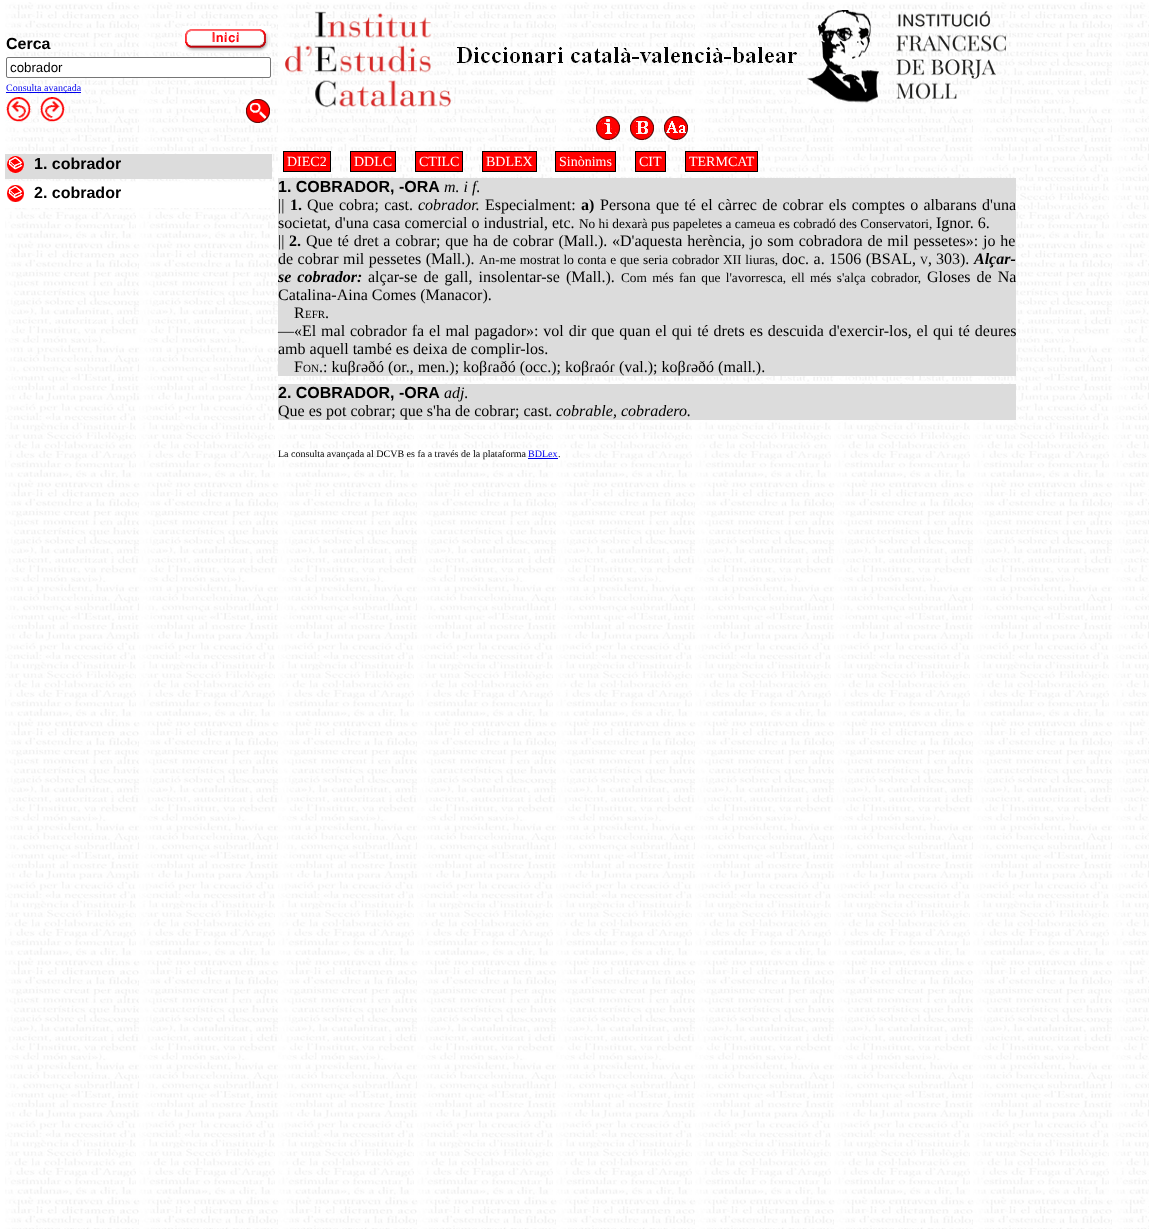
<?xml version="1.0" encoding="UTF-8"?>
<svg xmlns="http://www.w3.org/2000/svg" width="1149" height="1229">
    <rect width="100%" height="100%" fill="#FFFFFF"/>
    <image x="5" y="2" width="1144" height="1227" href="img_01.png"/>
    <rect x="5" y="2" width="1014" height="460" fill="#FFFFFF"/>
    <image x="5" y="2" width="1014" height="460" href="img_02.png"/>
    <text x="6" y="49" font-family="Liberation Sans" font-size="16" font-weight="700" fill="#000000">Cerca</text>
    <image x="182" y="26" width="89" height="27" href="img_03.png"/>
    <rect x="6.5" y="57.5" width="264" height="20" rx="1.5" fill="#FFFFFF" stroke="#767676"/>
    <text x="10" y="72" font-family="Liberation Sans" font-size="13.3" fill="#000000">cobrador</text>
    <rect x="6" y="92" width="75" height="1" fill="#0000EE"/>
    <text x="6" y="91" font-family="Liberation Serif" font-size="10" fill="#0000EE">Consulta avançada</text>
    <image x="6" y="97" width="25" height="25" href="img_04.png"/>
    <image x="40" y="97" width="25" height="25" href="img_05.png"/>
    <image x="246" y="99" width="24" height="24" href="img_06.png"/>
    <image x="284" y="11" width="167" height="97" href="img_07.png"/>
    <image x="457" y="47" width="340" height="16" href="img_08.png"/>
    <image x="807" y="10" width="199" height="93" href="img_09.png"/>
    <image x="596" y="116" width="24" height="24" href="img_10.png"/>
    <image x="630" y="116" width="24" height="24" href="img_11.png"/>
    <image x="664" y="116" width="24" height="24" href="img_12.png"/>
    <rect x="5" y="154" width="267" height="25" fill="#DCDCDC"/>
    <image x="7" y="156" width="17" height="17" href="img_13.png"/>
    <text x="34" y="169" font-family="Liberation Sans" font-size="16" font-weight="700" fill="#000000">1. cobrador</text>
    <rect x="5" y="183" width="267" height="25" fill="#FFFFFF"/>
    <image x="7" y="185" width="17" height="17" href="img_14.png"/>
    <text x="34" y="198" font-family="Liberation Sans" font-size="16" font-weight="700" fill="#000000">2. cobrador</text>
    <rect x="283.5" y="151.5" width="47" height="20" fill="#FF0000" stroke="#000000"/>
    <text x="287" y="166" font-family="Liberation Serif" font-size="14" fill="#FFFFFF">DIEC2</text>
    <rect x="350.5" y="151.5" width="45" height="20" fill="#FF0000" stroke="#000000"/>
    <text x="354" y="166" font-family="Liberation Serif" font-size="14" fill="#FFFFFF">DDLC</text>
    <rect x="415.5" y="151.5" width="47" height="20" fill="#FF0000" stroke="#000000"/>
    <text x="419" y="166" font-family="Liberation Serif" font-size="14" fill="#FFFFFF">CTILC</text>
    <rect x="482.5" y="151.5" width="54" height="20" fill="#FF0000" stroke="#000000"/>
    <text x="486" y="166" font-family="Liberation Serif" font-size="14" fill="#FFFFFF">BDLEX</text>
    <rect x="555.5" y="151.5" width="60" height="20" fill="#FF0000" stroke="#000000"/>
    <text x="559" y="166" font-family="Liberation Serif" font-size="14" fill="#FFFFFF">Sinònims</text>
    <rect x="635.5" y="151.5" width="30" height="20" fill="#FF0000" stroke="#000000"/>
    <text x="639" y="166" font-family="Liberation Serif" font-size="14" fill="#FFFFFF">CIT</text>
    <rect x="685.5" y="151.5" width="72" height="20" fill="#FF0000" stroke="#000000"/>
    <text x="689" y="166" font-family="Liberation Serif" font-size="14" fill="#FFFFFF">TERMCAT</text>
    <rect x="278" y="178" width="738" height="198" fill="#DCDCDC"/>
    <text x="278" y="192" font-family="Liberation Sans" font-size="16" font-weight="700" fill="#000000">1. COBRADOR, -ORA</text>
    <text x="444" y="192" font-family="Liberation Serif" font-size="16" font-style="italic" fill="#000000">m. i f.</text>
    <text x="278" y="210" font-family="Liberation Serif" font-size="16" fill="#000000">||</text>
    <text x="290" y="210" font-family="Liberation Serif" font-size="16" font-weight="700" fill="#000000">1.</text>
    <text x="307" y="210" word-spacing="1.25" font-family="Liberation Serif" font-size="16" fill="#000000">Que cobra; cast.</text>
    <text x="418" y="210" font-family="Liberation Serif" font-size="16" font-style="italic" fill="#000000">cobrador.</text>
    <text x="485" y="210" font-family="Liberation Serif" font-size="16" fill="#000000">Especialment:</text>
    <text x="581" y="210" font-family="Liberation Serif" font-size="16" font-weight="700" fill="#000000">a)</text>
    <text x="600" y="210" word-spacing="1.25" font-family="Liberation Serif" font-size="16" fill="#000000">Persona que té el càrrec de cobrar els comptes o albarans d'una</text>
    <text x="278" y="228" font-family="Liberation Serif" font-size="16" fill="#000000">societat, d'una casa comercial o industrial, etc.</text>
    <text x="579" y="228" font-family="Liberation Serif" font-size="13.3" fill="#000000">No hi dexarà pus papeletes a cameua es cobradó des Conservatori,</text>
    <text x="936" y="228" font-family="Liberation Serif" font-size="16" fill="#000000">Ignor. 6.</text>
    <text x="278" y="246" font-family="Liberation Serif" font-size="16" fill="#000000">||</text>
    <text x="289" y="246" font-family="Liberation Serif" font-size="16" font-weight="700" fill="#000000">2.</text>
    <text x="306" y="246" word-spacing="0.75" font-family="Liberation Serif" font-size="16" fill="#000000">Que té dret a cobrar; que ha de cobrar (Mall.). «D'aquesta herència, jo som cobradora de mil pessetes»: jo he</text>
    <text x="278" y="264" word-spacing="0.5" font-family="Liberation Serif" font-size="16" fill="#000000">de cobrar mil pessetes (Mall.).</text>
    <text x="479" y="264" word-spacing="0.5" font-family="Liberation Serif" font-size="13.3" fill="#000000">An-me mostrat lo conta e que seria cobrador XII liuras,</text>
    <text x="782" y="264" word-spacing="0.5" font-family="Liberation Serif" font-size="16" fill="#000000">doc. a. 1506 (BSAL,</text>
    <text x="920" y="264" font-family="Liberation Serif" font-size="11" fill="#000000">V</text>
    <text x="928" y="264" font-family="Liberation Serif" font-size="16" fill="#000000">,</text>
    <text x="936" y="264" font-family="Liberation Serif" font-size="16" fill="#000000">303).</text>
    <text x="974" y="264" font-family="Liberation Serif" font-size="16" font-weight="700" font-style="italic" fill="#000000">Alçar-</text>
    <text x="278" y="282" word-spacing="2" font-family="Liberation Serif" font-size="16" font-weight="700" font-style="italic" fill="#000000">se cobrador:</text>
    <text x="368" y="282" word-spacing="2" font-family="Liberation Serif" font-size="16" fill="#000000">alçar-se de gall, insolentar-se (Mall.).</text>
    <text x="621" y="282" word-spacing="2" font-family="Liberation Serif" font-size="13.3" fill="#000000">Com més fan que l'avorresca, ell més s'alça cobrador,</text>
    <text x="927" y="282" word-spacing="2" font-family="Liberation Serif" font-size="16" fill="#000000">Gloses de Na</text>
    <text x="278" y="300" font-family="Liberation Serif" font-size="16" fill="#000000">Catalina-Aina Comes (Manacor).</text>
    <text x="294" y="318" font-family="Liberation Serif" font-size="16" fill="#000000">R</text>
    <text x="305" y="318" font-family="Liberation Serif" font-size="11" fill="#000000">EFR</text>
    <text x="325" y="318" font-family="Liberation Serif" font-size="16" fill="#000000">.</text>
    <text font-family="Liberation Serif" font-size="16" fill="#000000">
        <tspan x="278" y="336" word-spacing="0.9">—«El mal cobrador fa el mal pagador»: vol dir que quan el qui té drets es descuida d'exercir-los, el qui té deures</tspan>
        <tspan x="278" y="354">amb aquell també es deixa de complir-los.</tspan>
    </text>
    <text x="294" y="372" font-family="Liberation Serif" font-size="16" fill="#000000">F</text>
    <text x="303" y="372" font-family="Liberation Serif" font-size="11" fill="#000000">ON</text>
    <text x="319" y="372" font-family="Liberation Serif" font-size="16" fill="#000000">.: kuβɾəðó (or., men.); koβɾaðó (occ.); koβɾaóɾ (val.); koβɾəðó (mall.).</text>
    <rect x="278" y="384" width="738" height="36" fill="#DCDCDC"/>
    <text x="278" y="398" font-family="Liberation Sans" font-size="16" font-weight="700" fill="#000000">2. COBRADOR, -ORA</text>
    <text x="444" y="398" font-family="Liberation Serif" font-size="16" font-style="italic" fill="#000000">adj.</text>
    <text x="278" y="416" font-family="Liberation Serif" font-size="16" fill="#000000">Que es pot cobrar; que s'ha de cobrar; cast.</text>
    <text x="556" y="416" font-family="Liberation Serif" font-size="16" font-style="italic" fill="#000000">cobrable, cobradero.</text>
    <text x="278" y="457" font-family="Liberation Serif" font-size="10" fill="#000000">La consulta avançada al DCVB es fa a través de la plataforma</text>
    <text x="528" y="457" font-family="Liberation Serif" font-size="10" fill="#0000EE">BDLex</text>
    <rect x="528" y="458" width="30" height="1" fill="#0000EE"/>
    <text x="558" y="457" font-family="Liberation Serif" font-size="10" fill="#000000">.</text>
</svg>
